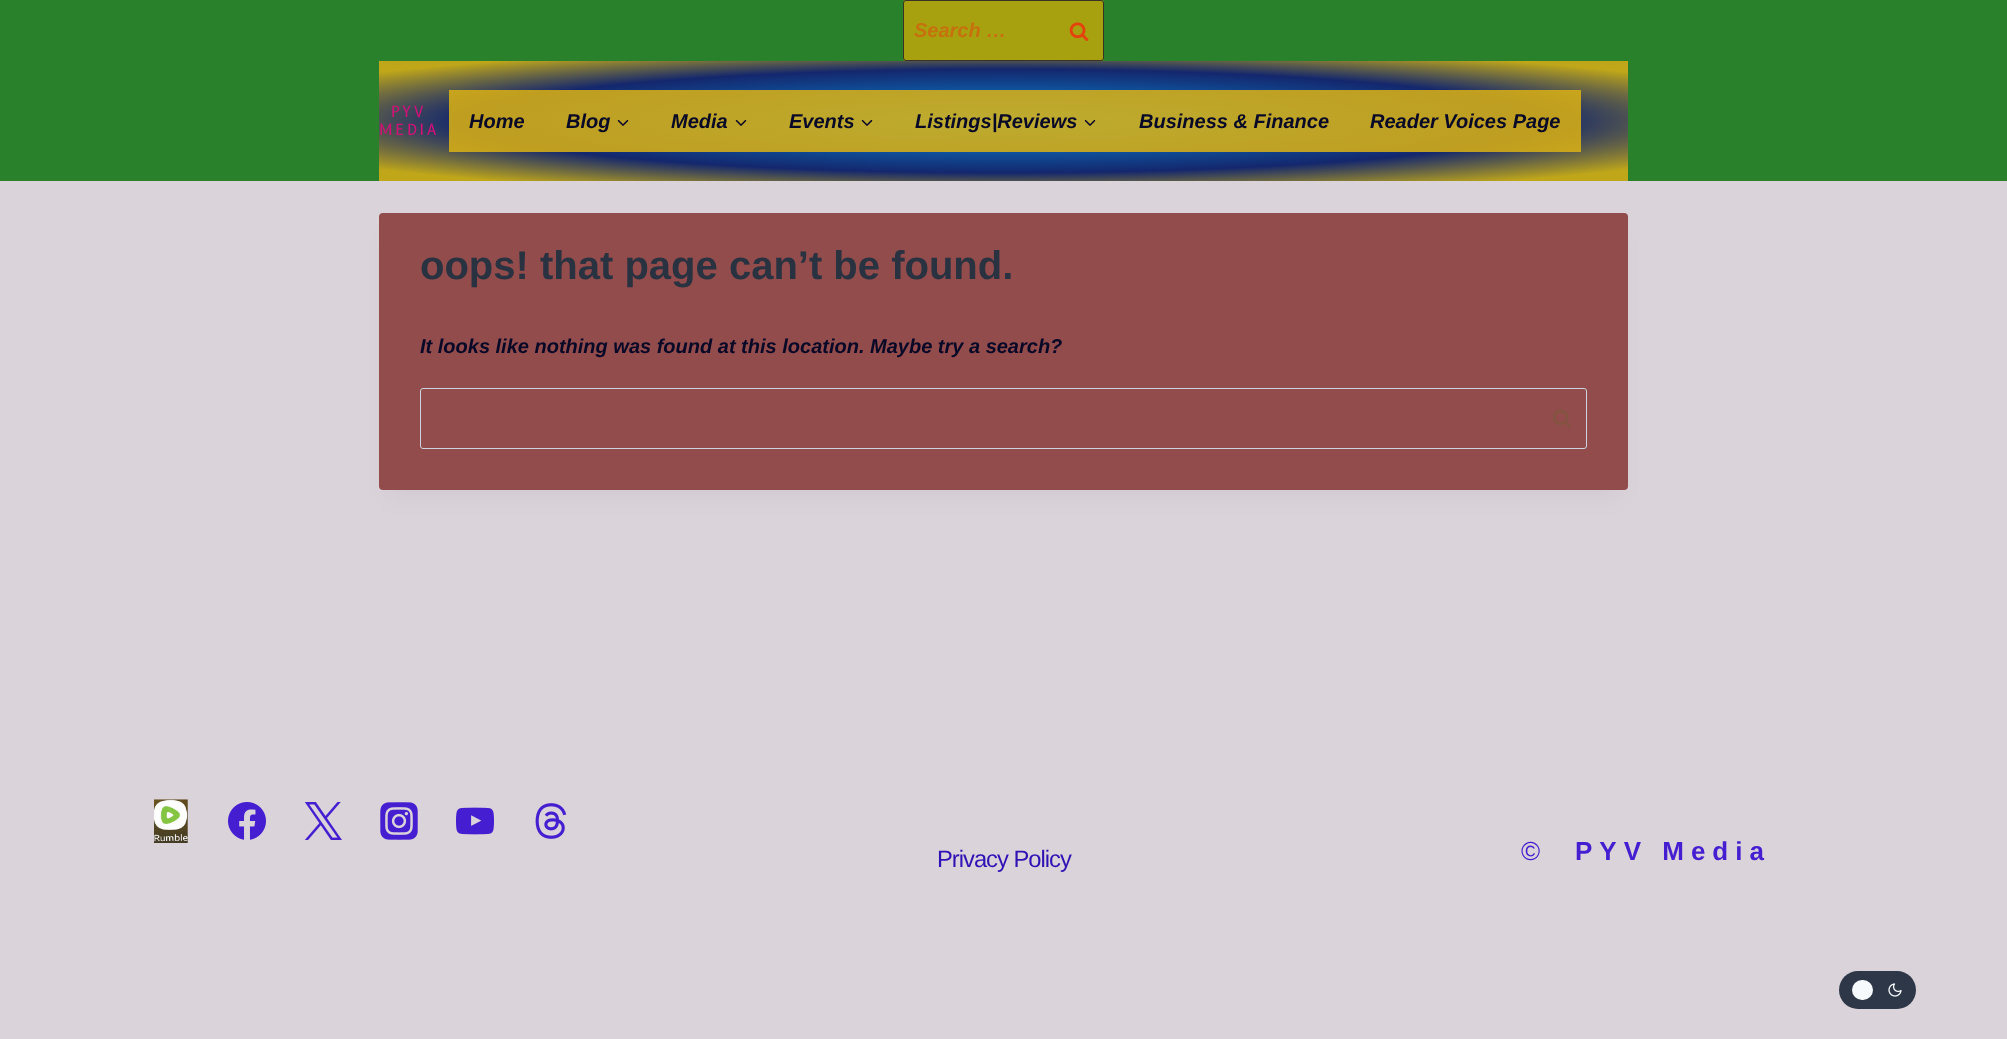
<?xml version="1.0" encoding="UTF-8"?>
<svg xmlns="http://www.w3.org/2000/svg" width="2007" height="1039">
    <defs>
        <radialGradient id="g1" gradientUnits="userSpaceOnUse" cx="0" cy="0" r="1" gradientTransform="matrix(883 0 0 85 1004 121)"><stop offset="0" stop-color="#0693E3"/><stop offset="0.61" stop-color="#14276D"/><stop offset="0.91" stop-color="#C0A719"/></radialGradient>
        <radialGradient id="g2" gradientUnits="userSpaceOnUse" cx="0" cy="0" r="1" gradientTransform="matrix(883 0 0 85 1004 121)"><stop offset="0" stop-color="#BDAC30"/><stop offset="0.61" stop-color="#BF9E20"/><stop offset="0.91" stop-color="#D5AF16"/></radialGradient>
        <filter id="blur1" x="-50%" y="-200%" width="200%" height="500%"><feGaussianBlur stdDeviation="12.5"/></filter>
    </defs>
    <rect width="100%" height="100%" fill="#DAD3DA"/>
    <rect x="0" y="0" width="2007" height="181" fill="#2A812B"/>
    <rect x="903" y="0" width="201" height="61" rx="3" fill="#A8A10F"/>
    <rect x="903.5" y="0.5" width="200" height="60" rx="2.5" fill="none" stroke="#1B1429" stroke-opacity="0.78"/>
    <text x="914" y="37" font-family="Liberation Sans" font-size="20" font-weight="700" font-style="italic" fill="#C6710E">Search …</text>
    <image x="1069" y="22" width="20" height="19" href="img_01.png"/>
    <rect x="379" y="61" width="1249" height="120" fill="url(#g1)"/>
    <rect x="1349" y="90" width="232" height="62" fill="url(#g2)"/>
    <rect x="1118" y="90" width="231" height="62" fill="url(#g2)"/>
    <rect x="895" y="90" width="223" height="62" fill="url(#g2)"/>
    <rect x="768" y="90" width="127" height="62" fill="url(#g2)"/>
    <rect x="651" y="90" width="117" height="62" fill="url(#g2)"/>
    <rect x="545" y="90" width="106" height="62" fill="url(#g2)"/>
    <rect x="449" y="90" width="96" height="62" fill="url(#g2)"/>
    <text x="391" y="117" font-family="'B612'" font-size="15" letter-spacing="2.75" fill="#D51078">PYV</text>
    <text x="379" y="135" font-family="'B612'" font-size="15" letter-spacing="2.75" fill="#D51078">MEDIA</text>
    <text x="469" y="128" font-family="Liberation Sans" font-size="20" font-weight="700" font-style="italic" fill="#080827">Home</text>
    <text x="566" y="128" font-family="Liberation Sans" font-size="20" font-weight="700" font-style="italic" fill="#080827">Blog</text>
    <image x="617" y="120" width="12" height="6" href="img_02.png"/>
    <text x="671" y="128" font-family="Liberation Sans" font-size="20" font-weight="700" font-style="italic" fill="#080827">Media</text>
    <image x="735" y="120" width="12" height="6" href="img_03.png"/>
    <text x="789" y="128" font-family="Liberation Sans" font-size="20" font-weight="700" font-style="italic" fill="#080827">Events</text>
    <image x="861" y="120" width="12" height="6" href="img_04.png"/>
    <text x="915" y="128" font-family="Liberation Sans" font-size="20" font-weight="700" font-style="italic" fill="#080827">Listings|Reviews</text>
    <image x="1084" y="120" width="12" height="6" href="img_05.png"/>
    <text x="1139" y="128" font-family="Liberation Sans" font-size="20" font-weight="700" font-style="italic" fill="#080827">Business &amp; Finance</text>
    <text x="1370" y="128" font-family="Liberation Sans" font-size="20" font-weight="700" font-style="italic" fill="#080827">Reader Voices Page</text>
    <rect x="389" y="238" width="1229" height="257" fill="#000000" fill-opacity="0.05" filter="url(#blur1)"/>
    <rect x="379" y="213" width="1249" height="277" rx="4" fill="#924C4C"/>
    <text x="420" y="279" font-family="Liberation Sans" font-size="40" font-weight="700" fill="#283240">oops! that page can’t be found.</text>
    <text x="420" y="353" font-family="Liberation Sans" font-size="20" font-weight="700" font-style="italic" fill="#080827">It looks like nothing was found at this location. Maybe try a search?</text>
    <rect x="420.5" y="388.5" width="1166" height="60" rx="2.5" fill="none" stroke="#CBD5E0"/>
    <image x="1553" y="409" width="18" height="19" href="img_06.png"/>
    <image x="154" y="799" width="34" height="44" href="img_07.png"/>
    <image x="228" y="802" width="38" height="38" href="img_08.png"/>
    <image x="304" y="802" width="38" height="38" href="img_09.png"/>
    <image x="380" y="802" width="38" height="38" href="img_10.png"/>
    <image x="456" y="807" width="38" height="28" href="img_11.png"/>
    <image x="535" y="803" width="32" height="36" href="img_12.png"/>
    <text x="937" y="867" font-family="Arimo" font-size="23.75" letter-spacing="-1" fill="#2F12B5">Privacy Policy</text>
    <text x="1521" y="860" font-family="Liberation Sans" font-size="26" letter-spacing="7" fill="#441ED0">©</text>
    <text x="1575" y="860" font-family="Liberation Sans" font-size="26" font-weight="700" letter-spacing="7" fill="#441ED0">PYV Media</text>
    <rect x="1839" y="971" width="77" height="38" rx="19" fill="#2D3748"/>
    <rect x="1852" y="980" width="21" height="20" rx="10" fill="#F7FAFC"/>
    <image x="1888" y="983" width="14" height="14" href="img_13.png"/>
</svg>
